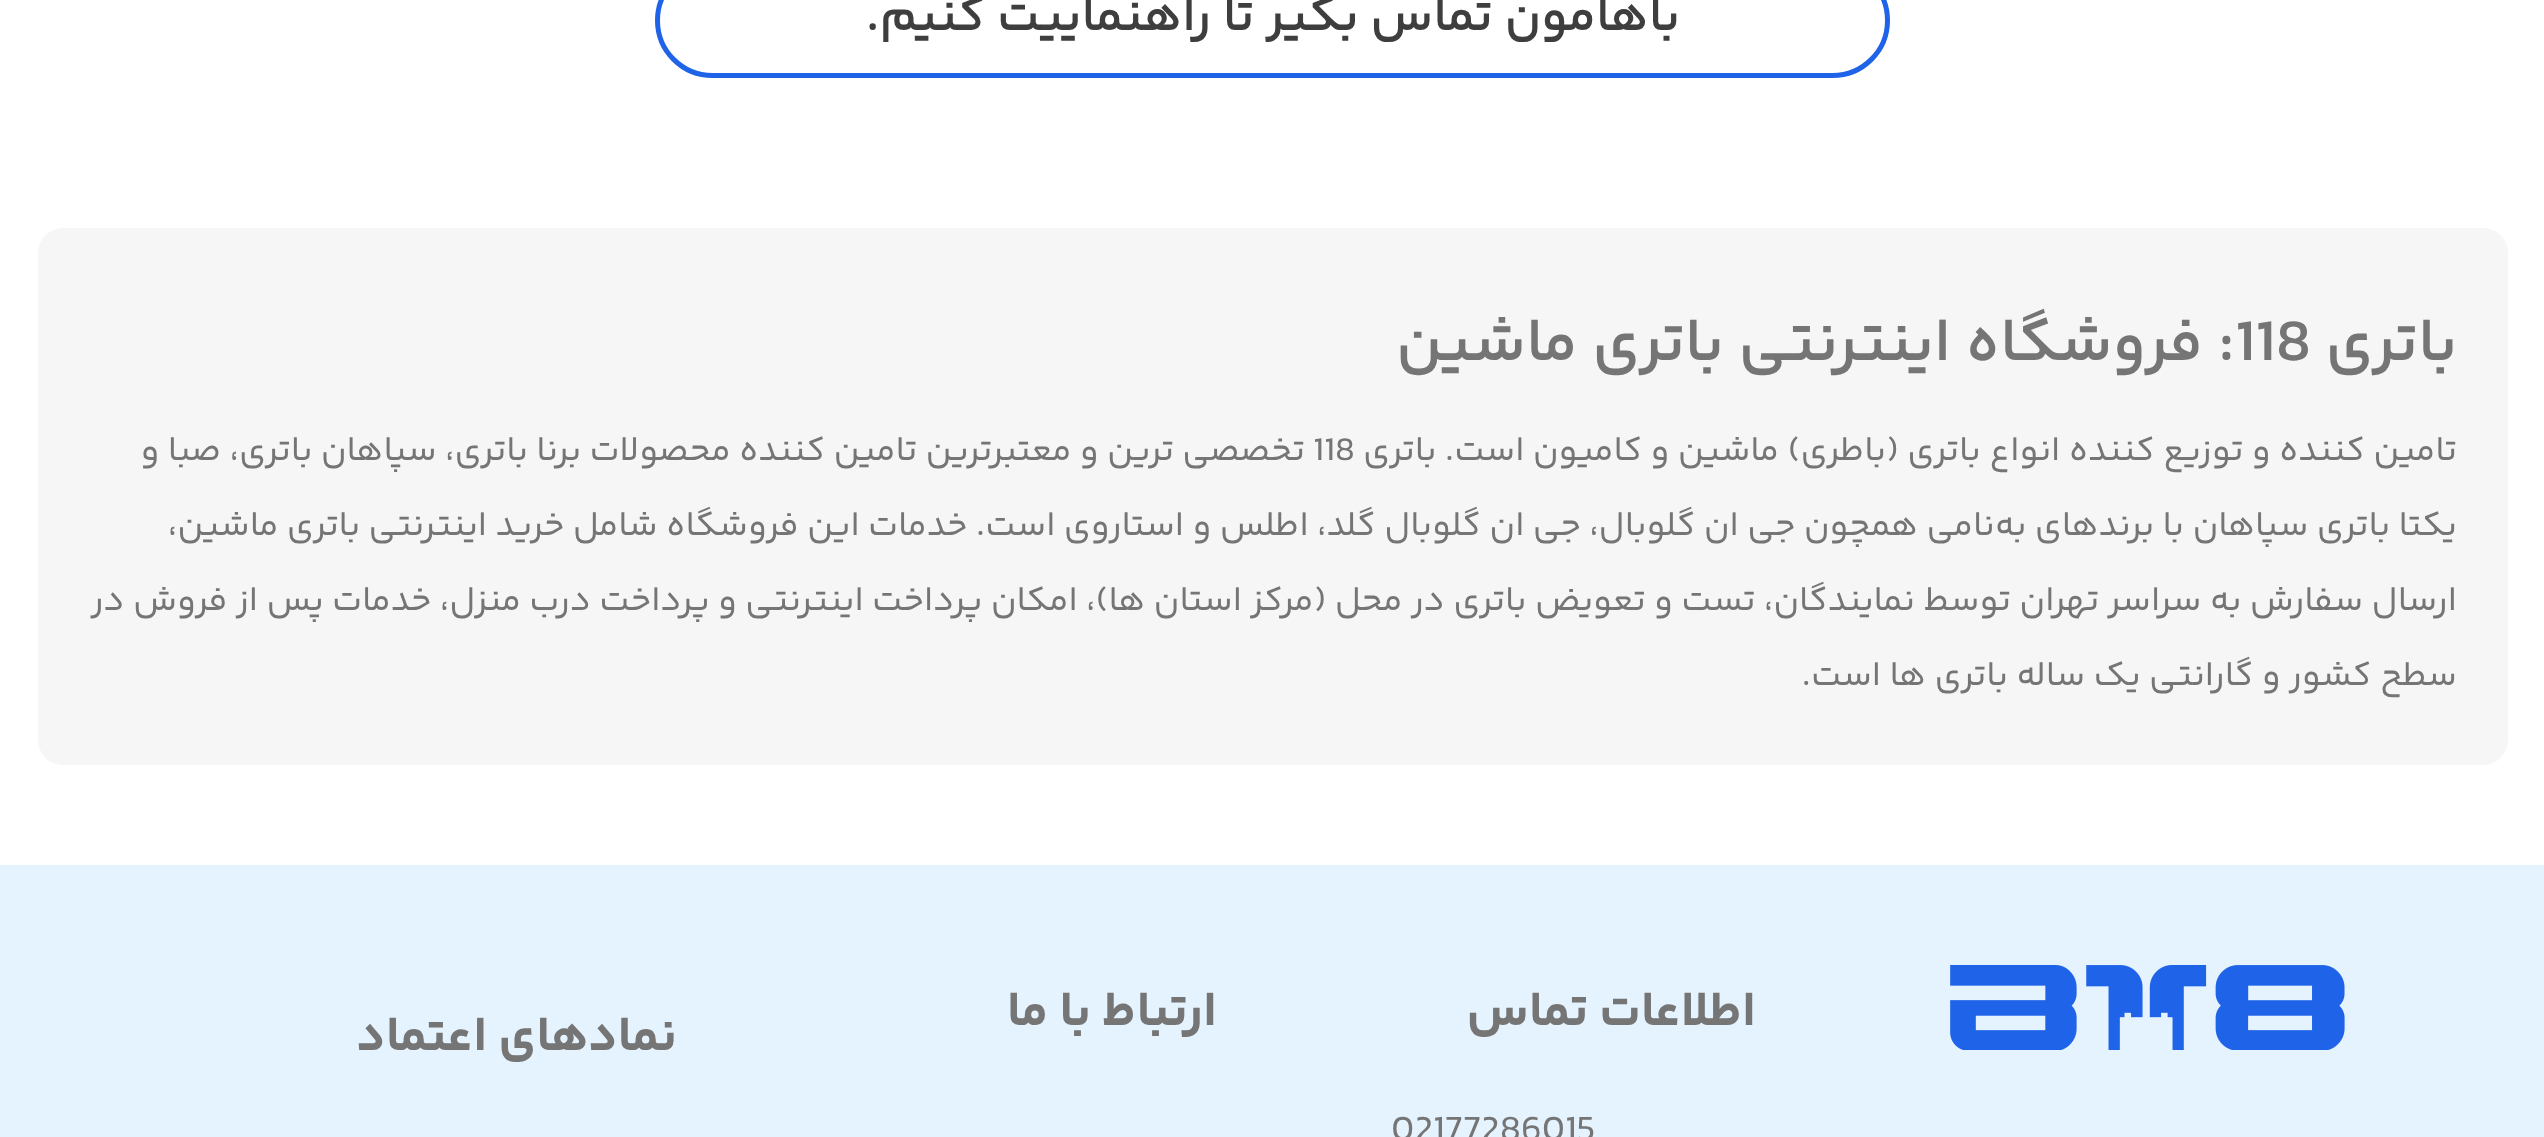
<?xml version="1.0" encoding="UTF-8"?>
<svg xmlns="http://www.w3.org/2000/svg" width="2544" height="1137">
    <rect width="100%" height="100%" fill="#FFFFFF"/>
    <rect x="657.5" y="-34.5" width="1230" height="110" rx="55" fill="none" stroke="#1F63E8" stroke-width="5"/>
    <text x="1680" y="30" font-family="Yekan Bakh" font-size="50" font-weight="600" direction="rtl" fill="#3E3E3E">باهامون تماس بگیر تا راهنماییت کنیم.</text>
    <rect x="38" y="228" width="2470" height="537" rx="25" fill="#F6F6F6"/>
    <text x="2457" y="360" font-family="Yekan Bakh" font-size="62.5" font-weight="600" direction="rtl" fill="#757575">باتری</text>
    <text x="2235" y="360" font-family="Yekan Bakh" font-size="62.5" font-weight="600" fill="#757575">118</text>
    <text x="2235" y="360" font-family="Yekan Bakh" font-size="62.5" font-weight="600" direction="rtl" fill="#757575">: فروشگاه اینترنتی باتری ماشین</text>
    <text x="2457" y="460" font-family="Yekan Bakh" font-size="35" direction="rtl" fill="#757575">تامین کننده و توزیع کننده انواع باتری (باطری) ماشین و کامیون است. باتری</text>
    <text x="1313" y="460" font-family="Yekan Bakh" font-size="35" fill="#757575">118</text>
    <text x="1305" y="460" font-family="Yekan Bakh" font-size="35" direction="rtl" fill="#757575">تخصصی ترین و معتبرترین تامین کننده محصولات برنا باتری، سپاهان باتری، صبا و</text>
    <text x="2457" y="535" font-family="Yekan Bakh" font-size="35" direction="rtl" fill="#757575">یکتا باتری سپاهان با برندهای به‌نامی همچون جی ان گلوبال، جی ان گلوبال گلد، اطلس و استاروی است. خدمات این فروشگاه شامل خرید اینترنتی باتری ماشین،</text>
    <text x="2457" y="610" font-family="Yekan Bakh" font-size="35" direction="rtl" fill="#757575">ارسال سفارش به سراسر تهران توسط نمایندگان، تست و تعویض باتری در محل (مرکز استان ها)، امکان پرداخت اینترنتی و پرداخت درب منزل، خدمات پس از فروش در</text>
    <text x="2457" y="685" font-family="Yekan Bakh" font-size="35" direction="rtl" fill="#757575">سطح کشور و گارانتی یک ساله باتری ها است.</text>
    <rect x="0" y="865" width="2544" height="272" fill="#E5F3FF"/>
    <image x="1950" y="965" width="395" height="85" href="img_01.png"/>
    <text x="1756" y="1025" font-family="Yekan Bakh" font-size="50" font-weight="700" direction="rtl" fill="#757575">اطلاعات تماس</text>
    <text x="1391" y="1140" font-family="Yekan Bakh" font-size="37.5" fill="#757575">02177286015</text>
    <text x="1217" y="1025" font-family="Yekan Bakh" font-size="50" font-weight="700" direction="rtl" fill="#757575">ارتباط با ما</text>
    <text x="677" y="1050" font-family="Yekan Bakh" font-size="50" font-weight="700" direction="rtl" fill="#757575">نمادهای اعتماد</text>
</svg>
